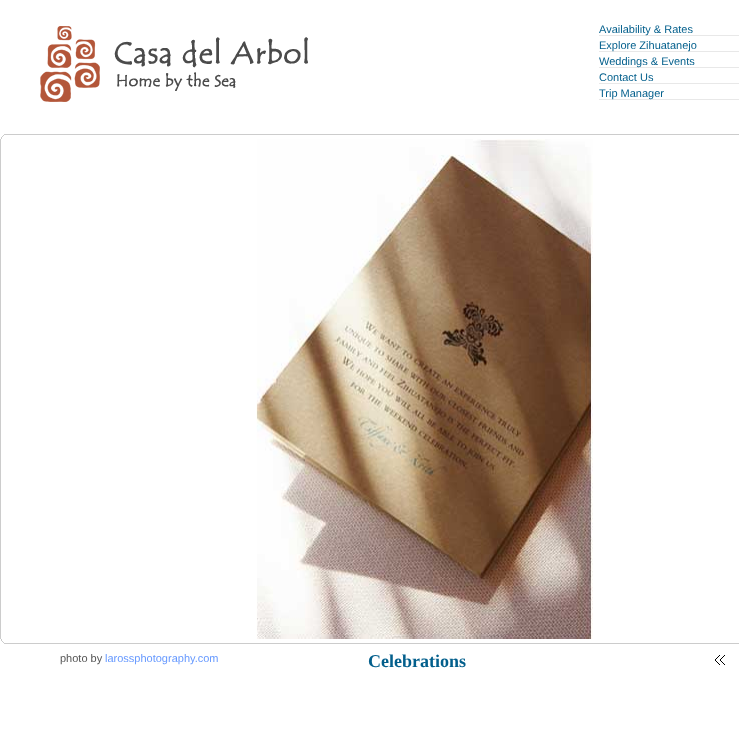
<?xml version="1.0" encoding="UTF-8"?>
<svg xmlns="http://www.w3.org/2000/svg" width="739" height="746">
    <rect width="100%" height="100%" fill="#FFFFFF"/>
    <image x="40" y="26" width="268" height="76" href="img_01.png"/>
    <rect x="599" y="35" width="140" height="1" fill="#E8E8E8"/>
    <text x="599" y="33" font-family="Liberation Sans" font-size="11" fill="#035F8C">Availability &amp; Rates</text>
    <rect x="599" y="51" width="140" height="1" fill="#E8E8E8"/>
    <text x="599" y="49" font-family="Liberation Sans" font-size="11" fill="#035F8C">Explore Zihuatanejo</text>
    <rect x="599" y="67" width="140" height="1" fill="#E8E8E8"/>
    <text x="599" y="65" font-family="Liberation Sans" font-size="11" fill="#035F8C">Weddings &amp; Events</text>
    <rect x="599" y="83" width="140" height="1" fill="#E8E8E8"/>
    <text x="599" y="81" font-family="Liberation Sans" font-size="11" fill="#035F8C">Contact Us</text>
    <rect x="599" y="99" width="140" height="1" fill="#E8E8E8"/>
    <text x="599" y="97" font-family="Liberation Sans" font-size="11" fill="#035F8C">Trip Manager</text>
    <rect x="4" y="134" width="735" height="1" fill="#CCCCCC"/>
    <rect x="3" y="135" width="1" height="1" fill="#CCCCCC"/>
    <rect x="2" y="136" width="1" height="1" fill="#CCCCCC"/>
    <rect x="1" y="137" width="1" height="2" fill="#CCCCCC"/>
    <rect x="0" y="139" width="1" height="500" fill="#CCCCCC"/>
    <image x="256" y="139" width="337" height="500" href="img_02.png"/>
    <rect x="1" y="639" width="1" height="2" fill="#CCCCCC"/>
    <rect x="2" y="641" width="1" height="1" fill="#CCCCCC"/>
    <rect x="3" y="642" width="1" height="1" fill="#CCCCCC"/>
    <rect x="4" y="643" width="735" height="1" fill="#CCCCCC"/>
    <text x="60" y="662" font-family="Liberation Sans" font-size="11" fill="#555555">photo by</text>
    <text x="105" y="662" font-family="Liberation Sans" font-size="11" fill="#6699FF">larossphotography.com</text>
    <image x="715" y="655" width="10" height="10" href="img_03.png"/>
    <text x="368" y="667" font-family="Liberation Serif" font-size="18" font-weight="700" fill="#035F8C">Celebrations</text>
</svg>
